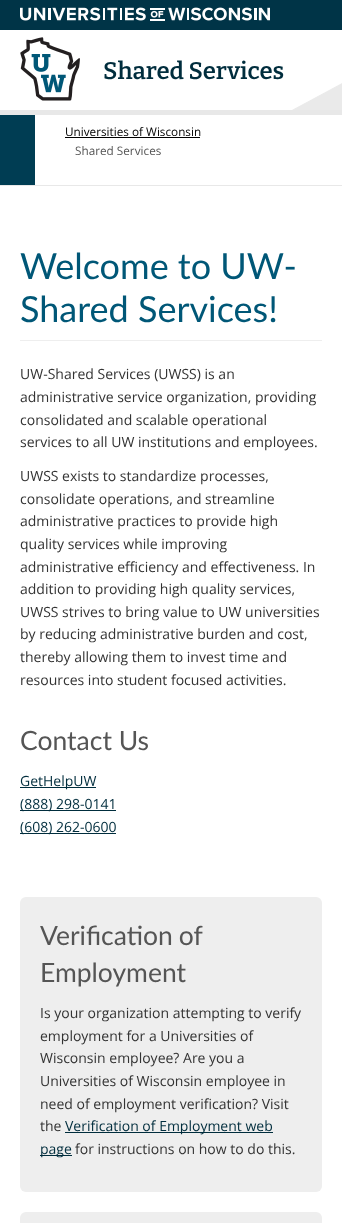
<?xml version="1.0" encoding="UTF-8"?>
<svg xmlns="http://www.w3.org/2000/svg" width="342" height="1223">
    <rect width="100%" height="100%" fill="#FFFFFF"/>
    <image x="221" y="83" width="121" height="27" href="img_01.png"/>
    <rect x="0" y="0" width="342" height="30" fill="#003447"/>
    <image x="20" y="7" width="250" height="14" href="img_02.png"/>
    <image x="20" y="37" width="60" height="64" href="img_03.png"/>
    <text x="103" y="79" font-family="Bitter" font-size="24" font-weight="600" fill="#002D3D">Shared Services</text>
    <rect x="0" y="115" width="35" height="70" fill="#003D53"/>
    <rect x="0" y="110" width="342" height="5" fill="#E8E8E8"/>
    <rect x="0" y="185" width="342" height="1" fill="#E8E8E8"/>
    <text x="65" y="136" font-family="Open Sans" font-size="11.75" fill="#000000">Universities of Wisconsin</text>
    <rect x="65" y="137" width="135" height="1" fill="#000000"/>
    <text x="75" y="155" font-family="Open Sans" font-size="11.75" fill="#555555">Shared Services</text>
    <rect x="20" y="340" width="302" height="1" fill="#EEEEEE"/>
    <text font-family="Lato" font-size="36" fill="#005777">
        <tspan x="20" y="279">Welcome to UW-</tspan>
        <tspan x="20" y="322">Shared Services!</tspan>
    </text>
    <text font-family="Open Sans" font-size="14" fill="#333333">
        <tspan x="20" y="379">UW-Shared Services (UWSS) is an</tspan>
        <tspan x="20" y="402">administrative service organization, providing</tspan>
        <tspan x="20" y="425">consolidated and scalable operational</tspan>
        <tspan x="20" y="447">services to all UW institutions and employees.</tspan>
    </text>
    <text font-family="Open Sans" font-size="14" fill="#333333">
        <tspan x="20" y="481">UWSS exists to standardize processes,</tspan>
        <tspan x="20" y="504">consolidate operations, and streamline</tspan>
        <tspan x="20" y="526">administrative practices to provide high</tspan>
        <tspan x="20" y="549">quality services while improving</tspan>
        <tspan x="20" y="572">administrative efficiency and effectiveness. In</tspan>
        <tspan x="20" y="594">addition to providing high quality services,</tspan>
        <tspan x="20" y="617">UWSS strives to bring value to UW universities</tspan>
        <tspan x="20" y="639">by reducing administrative burden and cost,</tspan>
        <tspan x="20" y="662">thereby allowing them to invest time and</tspan>
        <tspan x="20" y="685">resources into student focused activities.</tspan>
    </text>
    <text x="20" y="750" font-family="Lato" font-size="26.5" fill="#555555">Contact Us</text>
    <rect x="20" y="787" width="76" height="1" fill="#002D3D"/>
    <text x="20" y="786" font-family="Open Sans" font-size="14" fill="#002D3D">GetHelpUW</text>
    <rect x="20" y="810" width="96" height="1" fill="#002D3D"/>
    <text x="20" y="809" font-family="Open Sans" font-size="14" fill="#002D3D">(888) 298-0141</text>
    <rect x="20" y="833" width="96" height="1" fill="#002D3D"/>
    <text x="20" y="832" font-family="Open Sans" font-size="14" fill="#002D3D">(608) 262-0600</text>
    <rect x="20" y="897" width="302" height="295" rx="6" fill="#EEEEEE"/>
    <text font-family="Lato" font-size="26.5" fill="#555555">
        <tspan x="40" y="945" word-spacing="-1">Verification of</tspan>
        <tspan x="40" y="982">Employment</tspan>
    </text>
    <text font-family="Open Sans" font-size="14" fill="#333333">
        <tspan x="40" y="1018">Is your organization attempting to verify</tspan>
        <tspan x="40" y="1041">employment for a Universities of</tspan>
        <tspan x="40" y="1063">Wisconsin employee? Are you a</tspan>
        <tspan x="40" y="1086">Universities of Wisconsin employee in</tspan>
        <tspan x="40" y="1109">need of employment verification? Visit</tspan>
        <tspan x="40" y="1131">the</tspan>
    </text>
    <rect x="65" y="1132" width="208" height="1" fill="#002D3D"/>
    <text x="65" y="1131" font-family="Open Sans" font-size="14" fill="#002D3D">Verification of Employment web</text>
    <rect x="40" y="1155" width="32" height="1" fill="#002D3D"/>
    <text x="40" y="1154" font-family="Open Sans" font-size="14" fill="#002D3D">page</text>
    <text x="75" y="1154" font-family="Open Sans" font-size="14" fill="#333333">for instructions on how to do this.</text>
    <rect x="20" y="1212" width="302" height="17" rx="6" fill="#EEEEEE"/>
</svg>
